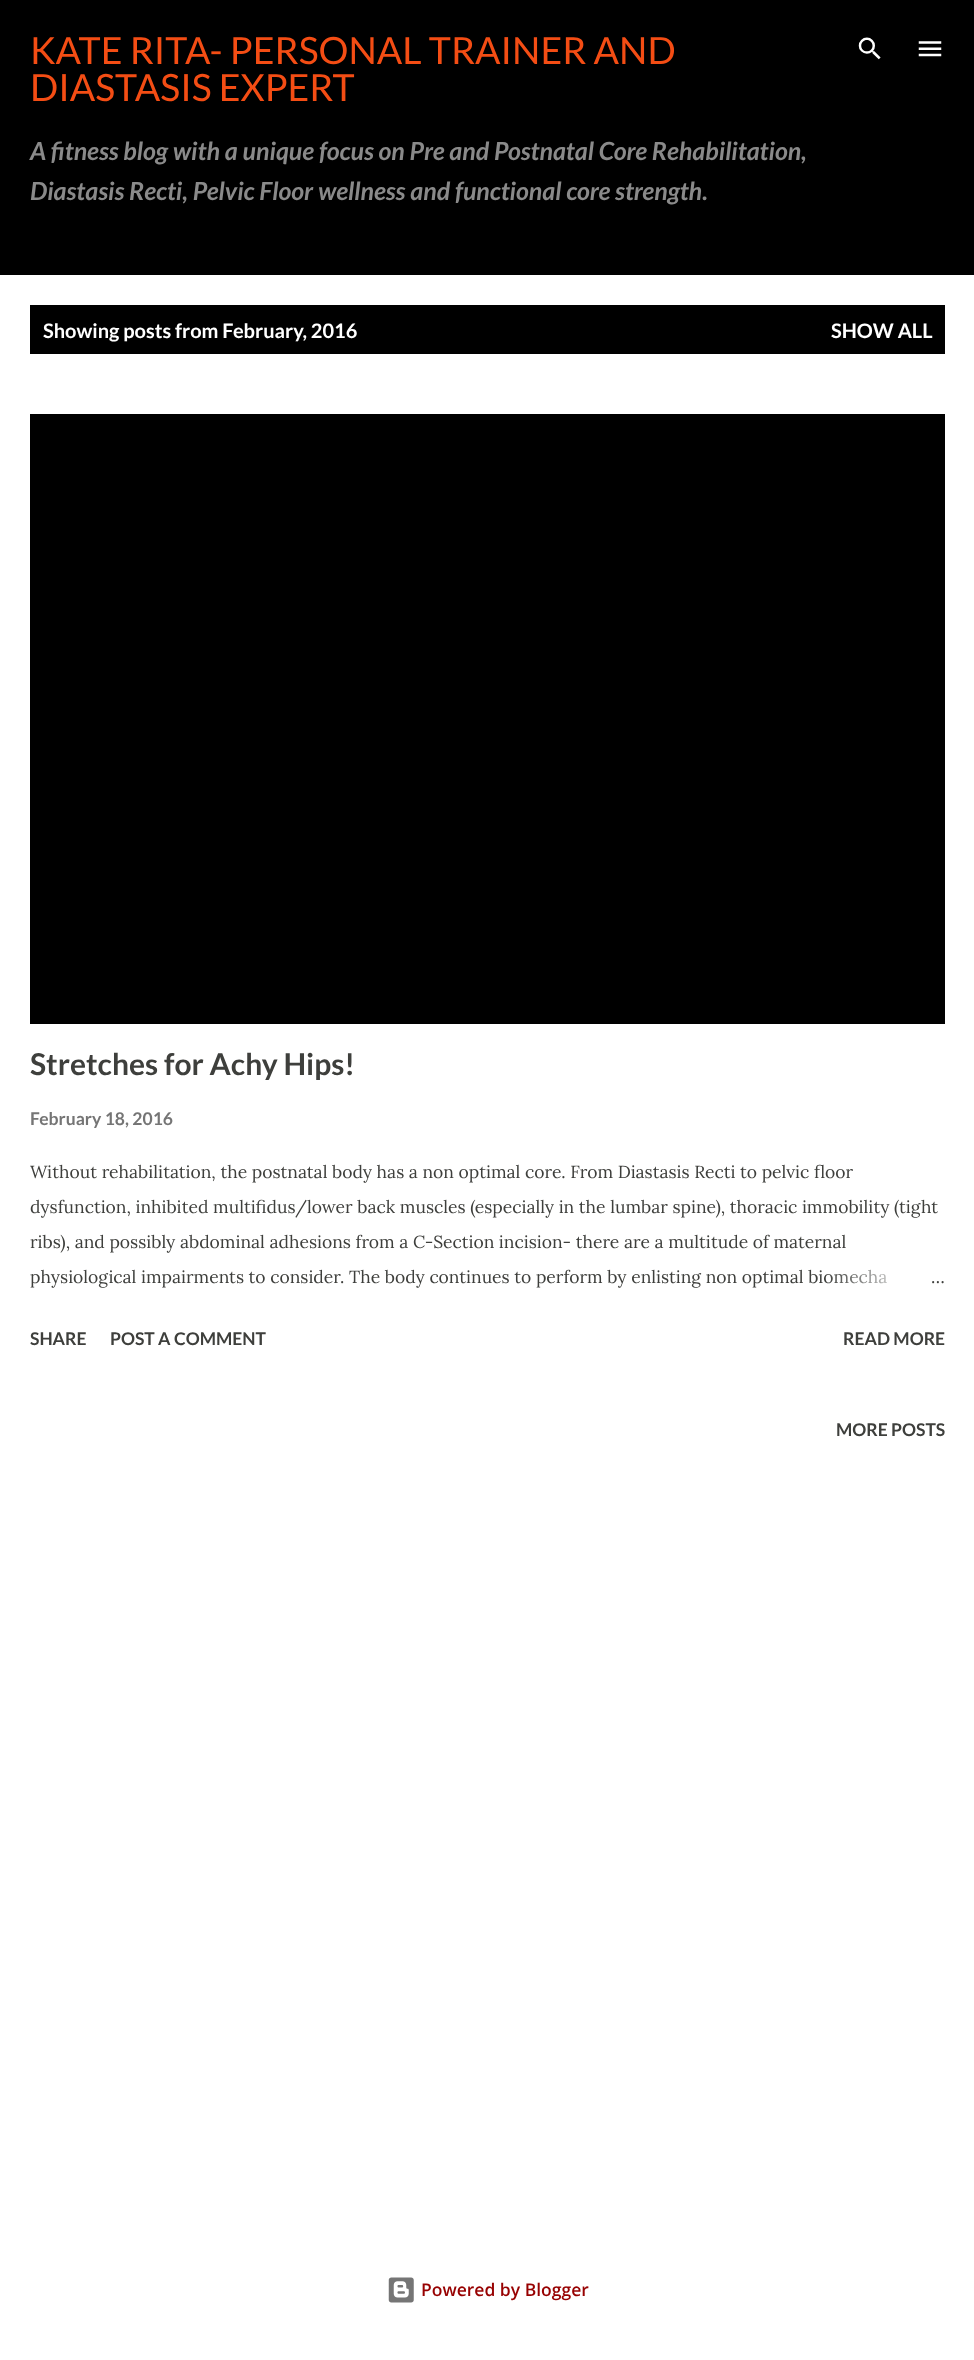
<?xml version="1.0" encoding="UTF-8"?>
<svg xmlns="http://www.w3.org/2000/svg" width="974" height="2360">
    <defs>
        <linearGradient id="g1" gradientUnits="userSpaceOnUse" x1="945" y1="1276" x2="825" y2="1276"><stop offset="0" stop-color="#FFFFFF"/><stop offset="0.2" stop-color="#FFFFFF"/><stop offset="1" stop-color="#FFFFFF" stop-opacity="0"/></linearGradient>
    </defs>
    <rect width="100%" height="100%" fill="#FFFFFF"/>
    <rect x="0" y="0" width="974" height="275" fill="#000000"/>
    <text font-family="Lato" font-size="37.5" fill="#F44D14">
        <tspan x="30" y="64">KATE RITA- PERSONAL TRAINER AND</tspan>
        <tspan x="30" y="101">DIASTASIS EXPERT</tspan>
    </text>
    <text font-family="Lato" font-size="25" font-weight="700" font-style="italic" fill="#8A8A8A">
        <tspan x="30" y="160">A fitness blog with a unique focus on Pre and Postnatal Core Rehabilitation,</tspan>
        <tspan x="30" y="200">Diastasis Recti, Pelvic Floor wellness and functional core strength.</tspan>
    </text>
    <image x="858" y="37" width="23" height="23" href="img_01.png"/>
    <image x="918" y="41" width="24" height="16" href="img_02.png"/>
    <rect x="30" y="305" width="915" height="49" fill="#000000"/>
    <text x="43" y="338" font-family="Lato" font-size="20" font-weight="700" fill="#FFFFFF">Showing posts from February, 2016</text>
    <text x="831" y="338" font-family="Lato" font-size="20" font-weight="700" fill="#FFFFFF">SHOW ALL</text>
    <rect x="30" y="414" width="915" height="610" fill="#000000"/>
    <text x="30" y="1075" font-family="Lato" font-size="30" font-weight="700" fill="#3E3F3C">Stretches for Achy Hips!</text>
    <text x="30" y="1125" font-family="Lato" font-size="17.5" font-weight="700" fill="#757575">February 18, 2016</text>
    <text x="30" y="1178" font-family="Lora" font-size="17.5" fill="#3E3F3C">Without rehabilitation, the postnatal body has a non optimal core. From Diastasis Recti to pelvic floor</text>
    <text x="30" y="1213" font-family="Lora" font-size="17.5" fill="#3E3F3C">dysfunction, inhibited multifidus/lower back muscles (especially in the lumbar spine), thoracic immobility (tight</text>
    <text x="30" y="1248" font-family="Lora" font-size="17.5" fill="#3E3F3C">ribs), and possibly abdominal adhesions from a C-Section incision- there are a multitude of maternal</text>
    <text x="30" y="1283" font-family="Lora" font-size="17.5" fill="#3E3F3C">physiological impairments to consider. The body continues to perform by enlisting non optimal biomecha</text>
    <rect x="827" y="1269" width="60" height="15" fill="url(#g1)"/>
    <text x="931" y="1283" font-family="Lora" font-size="17.5" fill="#3E3F3C">…</text>
    <text x="30" y="1345" font-family="Lato" font-size="17.5" font-weight="700" fill="#3E3F3C">SHARE</text>
    <text x="110" y="1345" font-family="Lato" font-size="17.5" font-weight="700" fill="#3E3F3C">POST A COMMENT</text>
    <text x="843" y="1345" font-family="Lato" font-size="17.5" font-weight="700" fill="#3E3F3C">READ MORE</text>
    <text x="836" y="1436" font-family="Lato" font-size="17.5" font-weight="700" fill="#3E3F3C">MORE POSTS</text>
    <image x="388" y="2277" width="26" height="26" href="img_03.png"/>
    <text x="421" y="2296" font-family="Open Sans" font-size="17.5" font-weight="600" fill="#970101">Powered by Blogger</text>
</svg>
